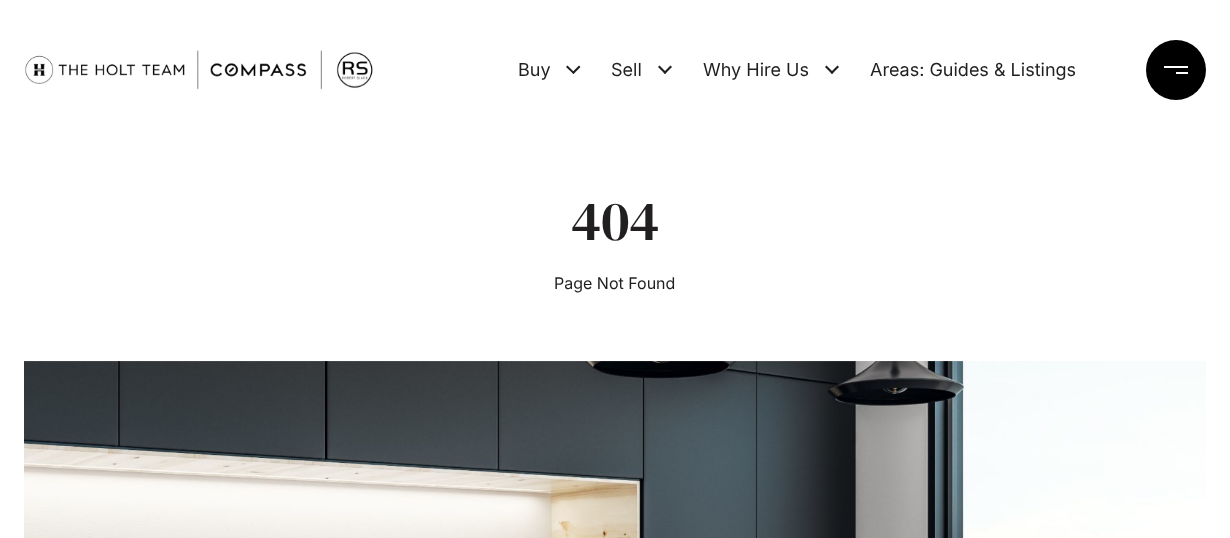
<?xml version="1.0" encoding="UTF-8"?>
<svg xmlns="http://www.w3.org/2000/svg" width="1230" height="538">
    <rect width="100%" height="100%" fill="#FFFFFF"/>
    <image x="25" y="50" width="348" height="40" href="img_01.png"/>
    <text x="518" y="76" font-family="Inter" font-size="18" fill="#211F1F">Buy</text>
    <path d="M 579 65.5 L 580.5 67 L 573.5 74 L 572 72.5 Z" fill="#211F1F"/>
    <path d="M 567.5 65.5 L 574.5 72.5 L 573.5 74 L 566 67 Z" fill="#211F1F"/>
    <text x="611" y="76" font-family="Inter" font-size="18" fill="#211F1F">Sell</text>
    <path d="M 670.5 65.5 L 672 67 L 665 74 L 663.5 72.5 Z" fill="#211F1F"/>
    <path d="M 659.5 65.5 L 666.5 72.5 L 665 74 L 658 67 Z" fill="#211F1F"/>
    <text x="703" y="76" font-family="Inter" font-size="18" fill="#211F1F">Why Hire Us</text>
    <path d="M 837.5 65.5 L 839 67 L 832 74 L 830.5 72.5 Z" fill="#211F1F"/>
    <path d="M 826.5 65.5 L 833.5 72.5 L 832 74 L 825 67 Z" fill="#211F1F"/>
    <text x="870" y="76" font-family="Inter" font-size="18" fill="#211F1F">Areas: Guides &amp; Listings</text>
    <circle cx="1176" cy="70" r="30" fill="#000000"/>
    <rect x="1164" y="66" width="24" height="2" fill="#FFFFFF"/>
    <rect x="1176" y="72" width="12" height="2" fill="#FFFFFF"/>
    <text x="571" y="240" font-family="DM Serif Display" font-size="56" fill="#211F1F">404</text>
    <text x="554" y="289" font-family="Inter" font-size="16" fill="#211F1F">Page Not Found</text>
    <image x="24" y="361" width="1182" height="177" href="img_02.png"/>
</svg>
